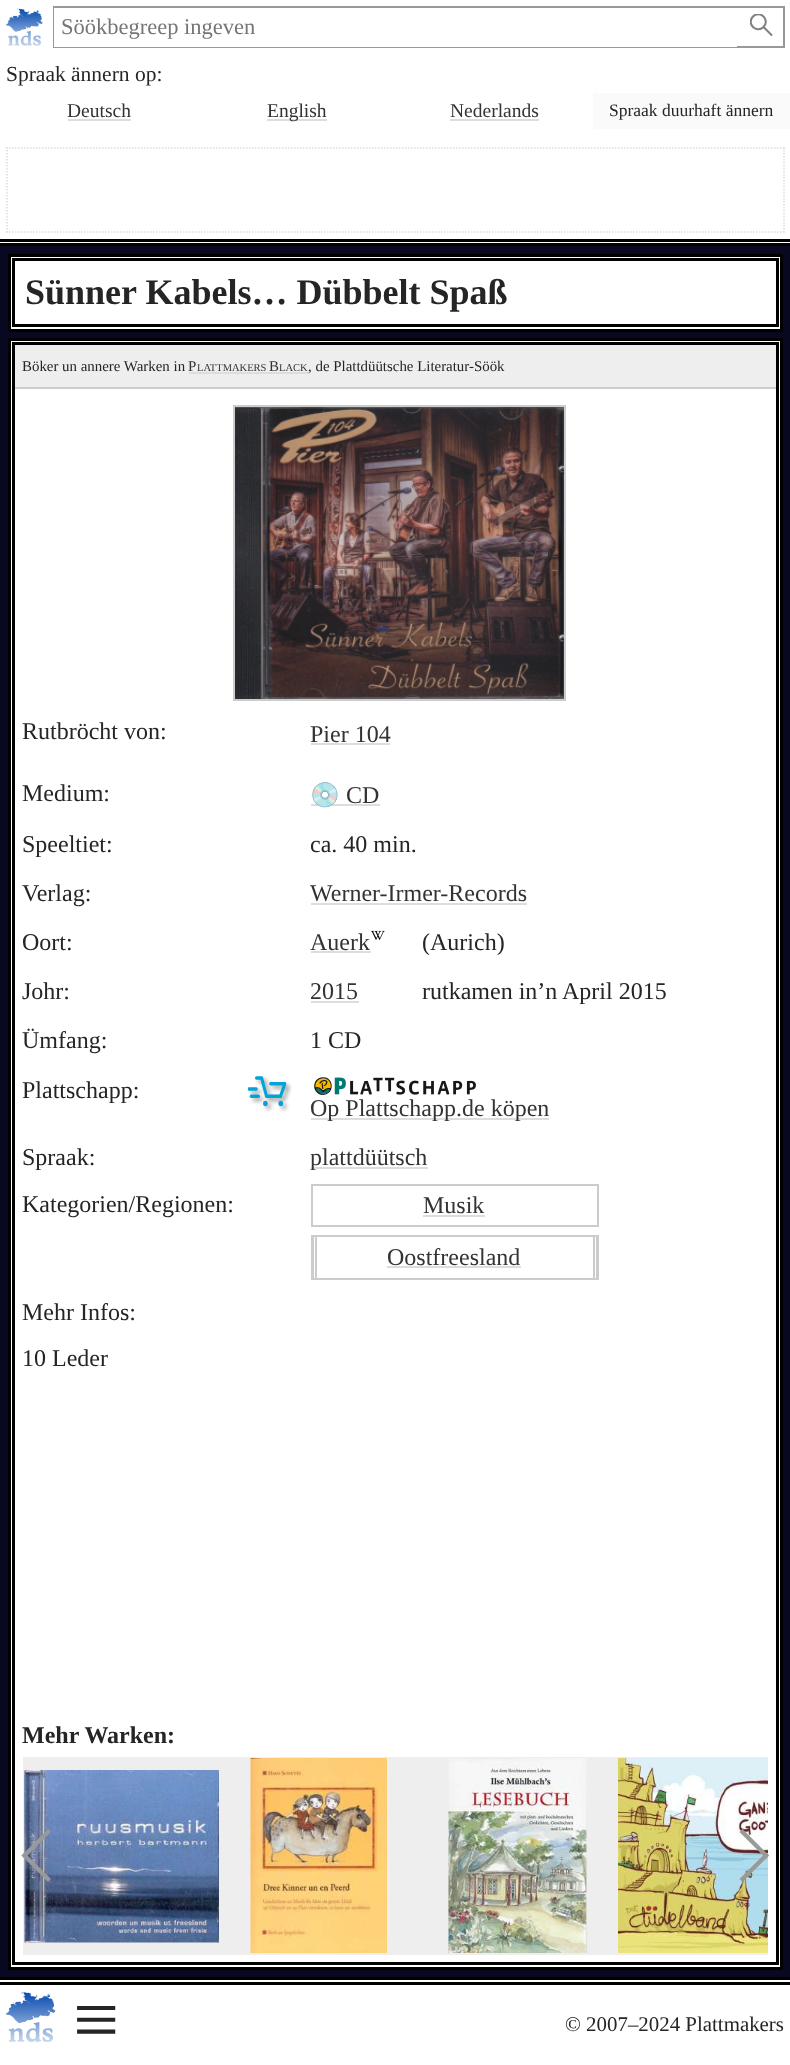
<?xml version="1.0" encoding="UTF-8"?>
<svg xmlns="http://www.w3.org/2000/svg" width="790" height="2065">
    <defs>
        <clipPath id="clip1"><rect x="750" y="14" width="24" height="24"/></clipPath>
    </defs>
    <rect width="100%" height="100%" fill="#080820"/>
    <rect x="0" y="0" width="790" height="243" fill="#FFFFFF"/>
    <rect x="0" y="239" width="790" height="3" fill="#000000"/>
    <rect x="0" y="243" width="790" height="3" fill="#000000"/>
    <image x="6" y="8" width="37" height="38" href="img_01.png"/>
    <rect x="54" y="7" width="730" height="40" fill="none" stroke="#999999" stroke-width="2"/>
    <rect x="54" y="8" width="683" height="39" fill="#FFFFFF"/>
    <text x="61" y="34" font-family="Liberation Serif" font-size="22.5" fill="#757575">Söökbegreep ingeven</text>
    <g clip-path="url(#clip1)">
        <path d="M 763.5 27 C 770.5 20 760 9.5 753 16.5 C 746 23.5 756.5 34 763.5 27 L 772 35.5" fill="none" stroke="#808080" stroke-width="2"/>
    </g>
    <text x="6" y="81" font-family="Liberation Serif" font-size="21.5" fill="#252525">Spraak ännern op:</text>
    <text x="67" y="117" font-family="Liberation Serif" font-size="19.5" fill="#333333">Deutsch</text>
    <rect x="68" y="119" width="63" height="2" fill="#DDDDDD"/>
    <rect x="267" y="119" width="60" height="2" fill="#DDDDDD"/>
    <text x="267" y="117" font-family="Liberation Serif" font-size="19.5" fill="#333333">English</text>
    <text x="450" y="117" font-family="Liberation Serif" font-size="19.5" fill="#333333">Nederlands</text>
    <rect x="450" y="119" width="89" height="2" fill="#DDDDDD"/>
    <rect x="593" y="93" width="197" height="36" fill="#FAFAFA"/>
    <text x="609" y="116" font-family="Liberation Serif" font-size="17.5" fill="#252525">Spraak duurhaft ännern</text>
    <path d="M 6 148 H 784.5" fill="none" stroke="#DDDDDD" stroke-width="1.5" stroke-dasharray="1.5 1.5"/>
    <path d="M 784 147 V 232.5" fill="none" stroke="#DDDDDD" stroke-width="1.5" stroke-dasharray="1.5 1.5"/>
    <path d="M 6 232 H 784.5" fill="none" stroke="#DDDDDD" stroke-width="1.5" stroke-dasharray="1.5 1.5"/>
    <path d="M 7 147 V 232.5" fill="none" stroke="#DDDDDD" stroke-width="1.5" stroke-dasharray="1.5 1.5"/>
    <rect x="9.5" y="255.5" width="772" height="75" fill="#FFFFFF" stroke="#000000" stroke-width="3"/>
    <rect x="13.5" y="259.5" width="764" height="66" fill="none" stroke="#000000" stroke-width="3"/>
    <text x="25" y="304" font-family="Liberation Serif" font-size="36" font-weight="700" fill="#252525">Sünner Kabels… Dübbelt Spaß</text>
    <rect x="9.5" y="339.5" width="772" height="1629" fill="#FFFFFF" stroke="#000000" stroke-width="3"/>
    <rect x="13.5" y="343.5" width="764" height="1620" fill="none" stroke="#000000" stroke-width="3"/>
    <rect x="15" y="345" width="761" height="42" fill="#EEEEEE"/>
    <rect x="15" y="387" width="761" height="2" fill="#CCCCCC"/>
    <text x="22" y="371" font-family="Liberation Serif" font-size="14.9" fill="#252525">Böker un annere Warken in</text>
    <text x="188" y="371" font-family="Liberation Serif" font-size="14.9" fill="#333333">P</text>
    <text x="197" y="371" font-family="Liberation Serif" font-size="10.5" fill="#333333">LATTMAKERS</text>
    <rect x="189" y="372" width="120" height="2" fill="#DDDDDD"/>
    <text x="269" y="371" font-family="Liberation Serif" font-size="14.9" fill="#333333">B</text>
    <text x="279" y="371" font-family="Liberation Serif" font-size="10.5" fill="#333333">LACK</text>
    <text x="308" y="371" font-family="Liberation Serif" font-size="14.9" fill="#252525">, de Plattdüütsche Literatur-Söök</text>
    <image x="235" y="407" width="329" height="292" href="img_02.png"/>
    <rect x="234" y="406" width="331" height="294" fill="none" stroke="#CCCCCC" stroke-width="2"/>
    <text x="22" y="739" font-family="Liberation Serif" font-size="24" fill="#252525">Rutbröcht von:</text>
    <text x="310" y="742" font-family="Liberation Serif" font-size="24" fill="#333333">Pier 104</text>
    <rect x="311" y="743" width="79" height="2" fill="#DDDDDD"/>
    <text x="22" y="801" font-family="Liberation Serif" font-size="24" fill="#252525">Medium:</text>
    <rect x="311" y="804" width="69" height="2" fill="#DDDDDD"/>
    <text x="310" y="803" font-family="Noto Color Emoji" font-size="24" fill="#333333">💿</text>
    <text x="346" y="803" font-family="Liberation Serif" font-size="24" fill="#333333">CD</text>
    <text x="22" y="852" font-family="Liberation Serif" font-size="24" fill="#252525">Speeltiet:</text>
    <text x="310" y="852" font-family="Liberation Serif" font-size="24" fill="#252525">ca. 40 min.</text>
    <text x="22" y="901" font-family="Liberation Serif" font-size="24" fill="#252525">Verlag:</text>
    <text x="310" y="901" font-family="Liberation Serif" font-size="24" fill="#333333">Werner-Irmer-Records</text>
    <rect x="311" y="903" width="216" height="2" fill="#DDDDDD"/>
    <text x="22" y="950" font-family="Liberation Serif" font-size="24" fill="#252525">Oort:</text>
    <text x="310" y="950" font-family="Liberation Serif" font-size="24" fill="#333333">Auerk</text>
    <rect x="311" y="951" width="60" height="2" fill="#DDDDDD"/>
    <image x="371" y="930" width="14" height="10" href="img_03.png"/>
    <text x="422" y="950" font-family="Liberation Serif" font-size="24" fill="#252525">(Aurich)</text>
    <text x="22" y="999" font-family="Liberation Serif" font-size="24" fill="#252525">Johr:</text>
    <text x="310" y="999" font-family="Liberation Serif" font-size="24" fill="#333333">2015</text>
    <rect x="311" y="1001" width="48" height="2" fill="#DDDDDD"/>
    <text x="422" y="999" font-family="Liberation Serif" font-size="24" fill="#252525">rutkamen in’n April 2015</text>
    <text x="22" y="1048" font-family="Liberation Serif" font-size="24" fill="#252525">Ümfang:</text>
    <text x="310" y="1048" font-family="Liberation Serif" font-size="24" fill="#252525">1 CD</text>
    <text x="22" y="1098" font-family="Liberation Serif" font-size="24" fill="#252525">Plattschapp:</text>
    <image x="248" y="1076" width="44" height="36" href="img_04.png"/>
    <image x="314" y="1077" width="162" height="18" href="img_05.png"/>
    <rect x="311" y="1118" width="238" height="2" fill="#DDDDDD"/>
    <text x="310" y="1116" font-family="Liberation Serif" font-size="24" fill="#333333">Op Plattschapp.de köpen</text>
    <text x="22" y="1165" font-family="Liberation Serif" font-size="24" fill="#252525">Spraak:</text>
    <rect x="311" y="1167" width="117" height="2" fill="#DDDDDD"/>
    <text x="310" y="1165" font-family="Liberation Serif" font-size="24" fill="#333333">plattdüütsch</text>
    <text x="22" y="1212" font-family="Liberation Serif" font-size="24" fill="#252525">Kategorien/Regionen:</text>
    <rect x="312" y="1185" width="286" height="41" fill="none" stroke="#CCCCCC" stroke-width="2"/>
    <text x="423" y="1213" font-family="Liberation Serif" font-size="24" fill="#333333">Musik</text>
    <rect x="423" y="1215" width="62" height="2" fill="#DDDDDD"/>
    <rect x="312" y="1236" width="286" height="43" fill="none" stroke="#CCCCCC" stroke-width="2"/>
    <rect x="593" y="1236" width="2" height="42" fill="#CCCCCC"/>
    <rect x="596" y="1236" width="1" height="42" fill="#CCCCCC"/>
    <rect x="313" y="1236" width="1" height="42" fill="#CCCCCC"/>
    <rect x="315" y="1236" width="2" height="42" fill="#CCCCCC"/>
    <text x="387" y="1265" font-family="Liberation Serif" font-size="24" fill="#333333">Oostfreesland</text>
    <rect x="387" y="1266" width="134" height="2" fill="#DDDDDD"/>
    <text font-family="Liberation Serif" font-size="24" fill="#252525">
        <tspan x="22" y="1320">Mehr Infos:</tspan>
        <tspan x="22" y="1366">10 Leder</tspan>
    </text>
    <text x="22" y="1743" font-family="Liberation Serif" font-size="24" font-weight="700" fill="#252525">Mehr Warken:</text>
    <rect x="23" y="1757" width="745" height="198" fill="#EEEEEE"/>
    <image x="24" y="1770" width="195" height="173" href="img_06.png"/>
    <image x="250" y="1758" width="137" height="195" href="img_07.png"/>
    <image x="448" y="1758" width="139" height="195" href="img_08.png"/>
    <image x="618" y="1758" width="150" height="195" href="img_09.png"/>
    <path d="M 51 1879 L 48 1882 L 21.5 1855.5 L 24.5 1852.5 Z" fill="#999999"/>
    <path d="M 51 1832 L 24.5 1858.5 L 21.5 1855.5 L 48 1829 Z" fill="#999999"/>
    <path d="M 739.5 1832 L 742.5 1829 L 769 1855.5 L 766 1858.5 Z" fill="#999999"/>
    <path d="M 739.5 1879 L 766 1852.5 L 769 1855.5 L 742.5 1882 Z" fill="#999999"/>
    <rect x="0" y="1980" width="790" height="85" fill="#FFFFFF"/>
    <rect x="0" y="1977" width="790" height="3" fill="#000000"/>
    <rect x="0" y="1982" width="790" height="3" fill="#000000"/>
    <image x="6" y="1991" width="50" height="52" href="img_10.png"/>
    <text x="73" y="2047" font-family="Liberation Serif" font-size="82" fill="#252525">≡</text>
    <text x="565" y="2031" font-family="Liberation Serif" font-size="20.9" fill="#252525">© 2007–2024 Plattmakers</text>
</svg>
